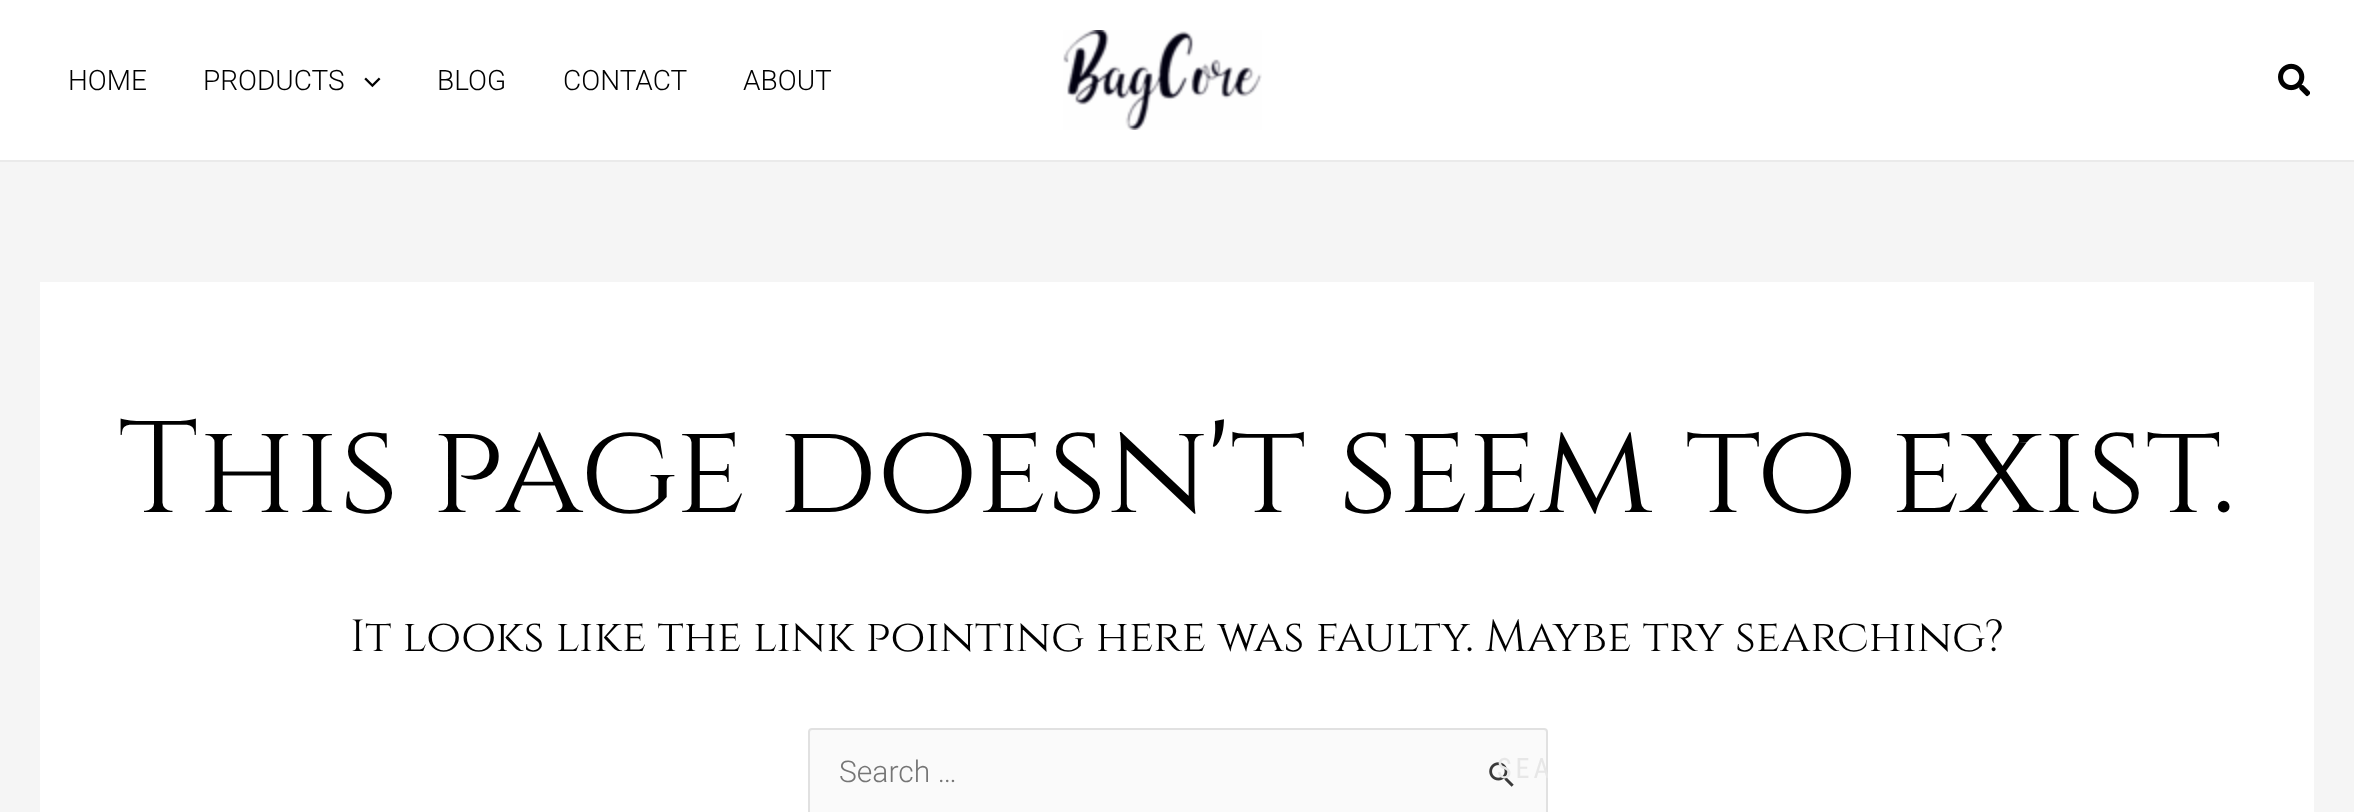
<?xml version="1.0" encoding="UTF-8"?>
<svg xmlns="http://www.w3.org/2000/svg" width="2354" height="812">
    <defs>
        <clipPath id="clip1"><rect x="1458" y="728" width="90" height="80" rx="4"/></clipPath>
    </defs>
    <rect width="100%" height="100%" fill="#F5F5F5"/>
    <rect x="0" y="0" width="2354" height="160" fill="#FFFFFF"/>
    <rect x="0" y="160" width="2354" height="2" fill="#EAEAEA"/>
    <text x="68" y="90" font-family="Roboto" font-size="28" font-weight="300" fill="#000000">HOME</text>
    <text x="203" y="90" font-family="Roboto" font-size="28" font-weight="300" fill="#000000">PRODUCTS</text>
    <image x="364" y="77" width="17" height="11" href="img_01.png"/>
    <text x="437" y="90" font-family="Roboto" font-size="28" font-weight="300" fill="#000000">BLOG</text>
    <text x="563" y="90" font-family="Roboto" font-size="28" font-weight="300" fill="#000000">CONTACT</text>
    <text x="743" y="90" font-family="Roboto" font-size="28" font-weight="300" fill="#000000">ABOUT</text>
    <image x="1063" y="30" width="199" height="100" href="img_02.png"/>
    <image x="2278" y="63" width="32" height="34" href="img_03.png"/>
    <rect x="40" y="282" width="2274" height="530" fill="#FFFFFF"/>
    <text x="118" y="512" font-family="Cinzel" font-size="130" fill="#000000">This page doesn't seem to exist.</text>
    <text x="350" y="651" font-family="Cinzel" font-size="45" fill="#000000">It looks like the link pointing here was faulty. Maybe try searching?</text>
    <rect x="809" y="729" width="738" height="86" rx="3" fill="#FAFAFA" stroke="#E1E1E1" stroke-width="2"/>
    <text x="839" y="782" font-family="Roboto" font-size="30" font-weight="300" fill="#757575">Search …</text>
    <image x="1489" y="762" width="25" height="25" href="img_04.png"/>
    <g clip-path="url(#clip1)">
        <text x="1497" y="778" font-family="Roboto Condensed" font-size="28" letter-spacing="4" fill="#E7E7E7">SEA</text>
    </g>
</svg>
